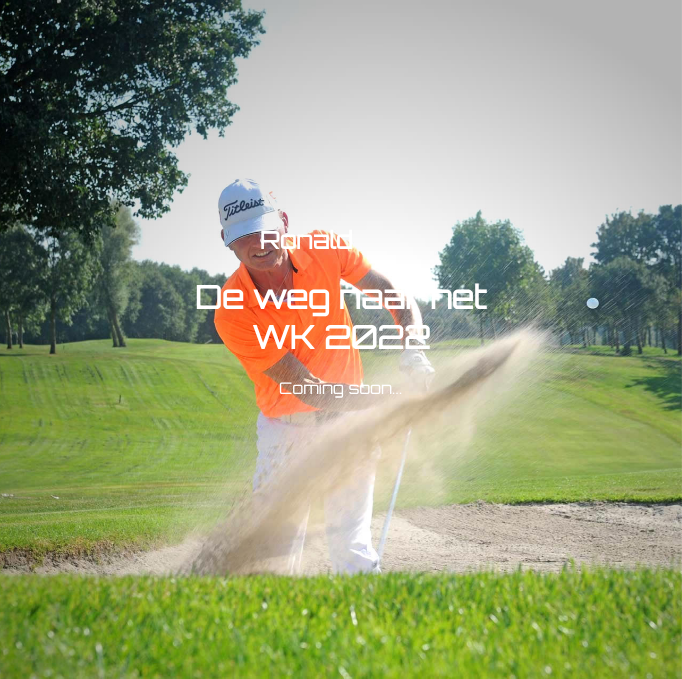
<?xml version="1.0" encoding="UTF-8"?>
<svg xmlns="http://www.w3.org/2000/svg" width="682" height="679">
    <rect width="100%" height="100%" fill="#FFFFFF"/>
    <image x="0" y="0" width="682" height="679" href="img_01.png"/>
    <text x="260" y="249" font-family="Orbitron" font-size="24" font-weight="700" fill="#FFFFFF">Ronald</text>
    <text x="195" y="309" font-family="Orbitron" font-size="32" font-weight="700" fill="#FFFFFF">De weg naar het</text>
    <text x="252" y="349" font-family="Orbitron" font-size="32" font-weight="700" fill="#FFFFFF">WK 2022</text>
    <text x="279" y="394" font-family="Orbitron" font-size="16" fill="#FFFFFF">Coming soon...</text>
</svg>
